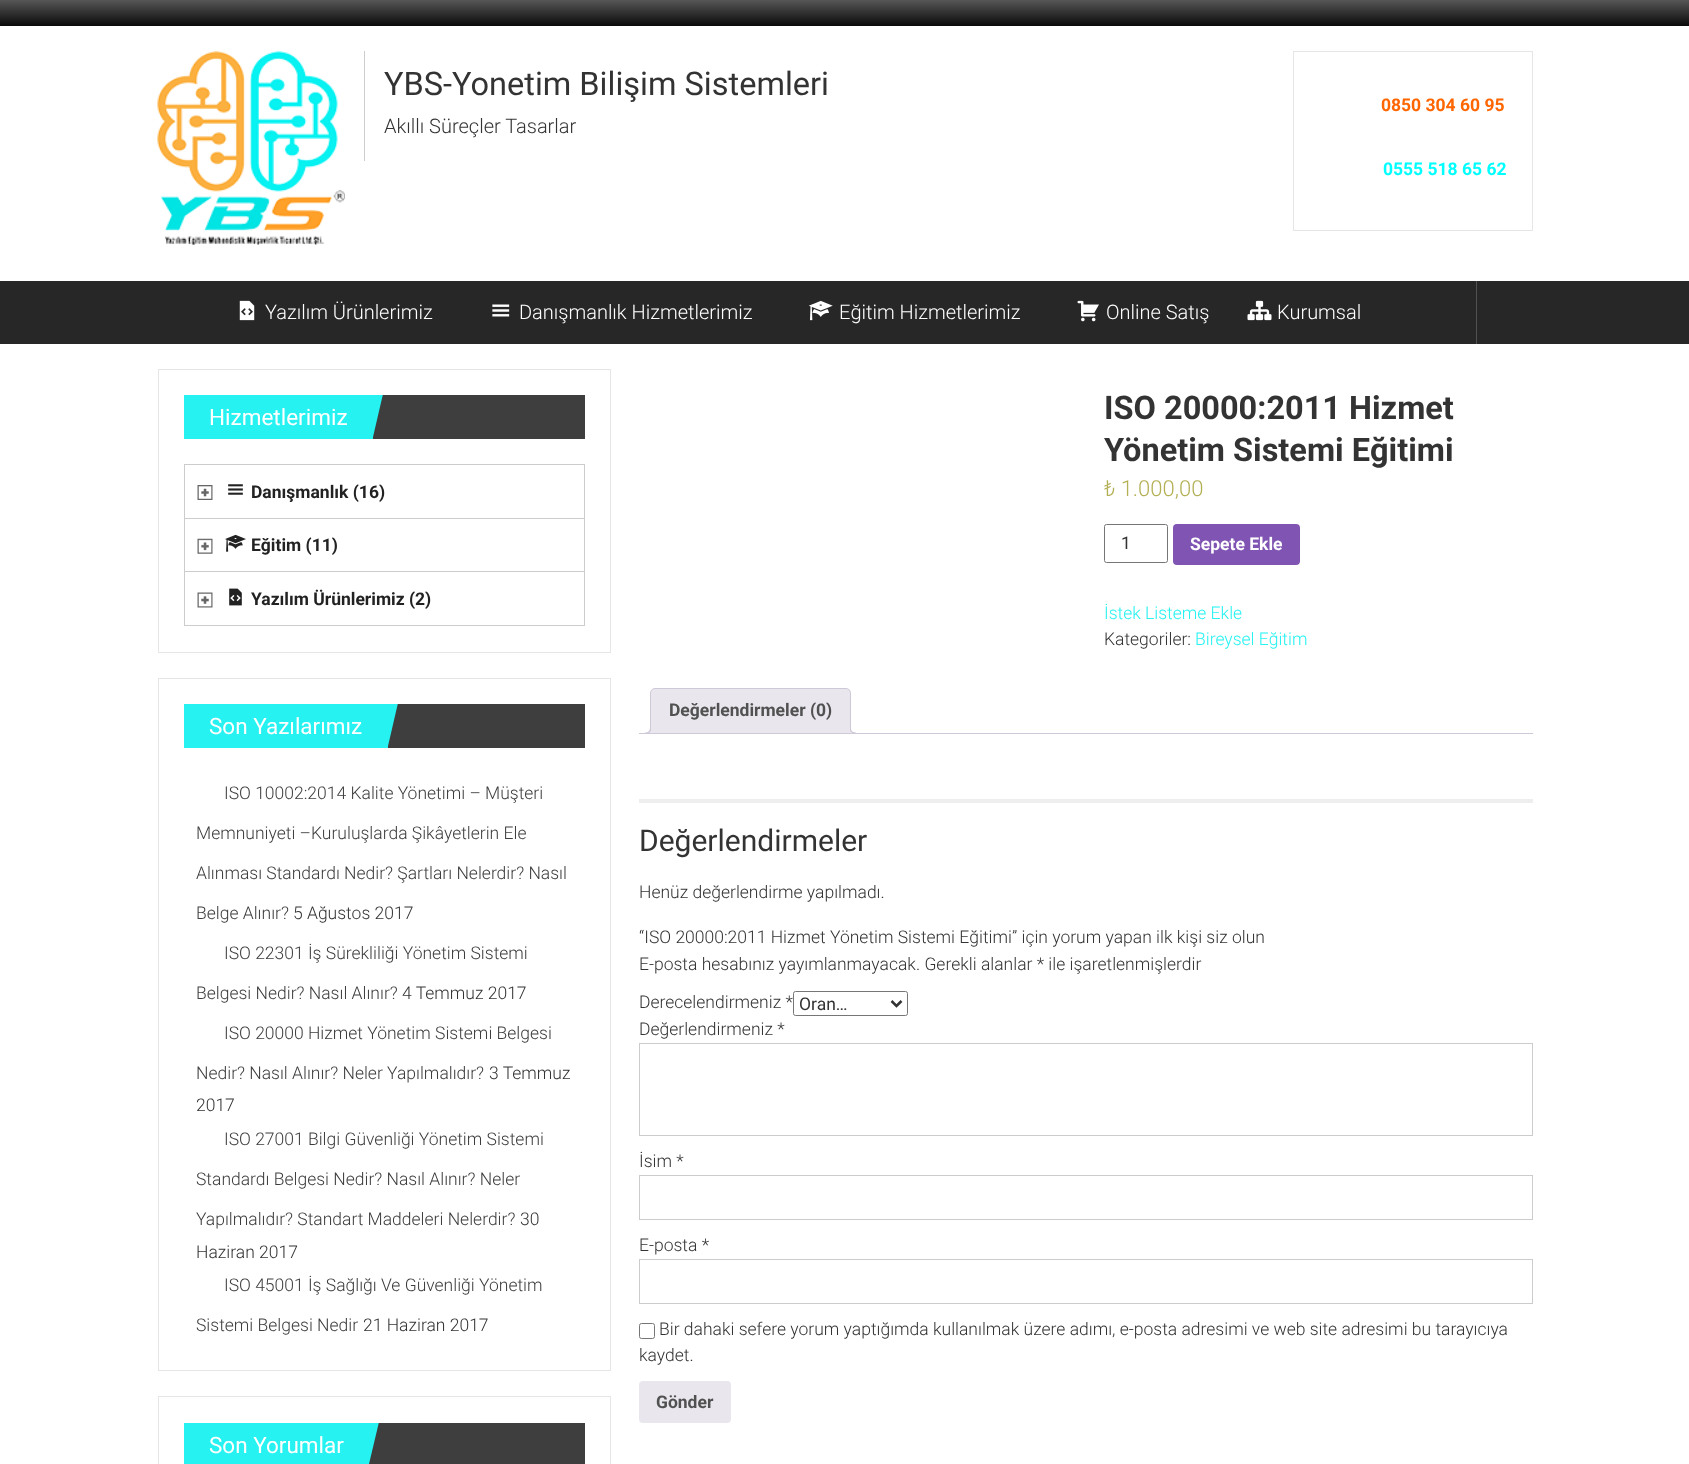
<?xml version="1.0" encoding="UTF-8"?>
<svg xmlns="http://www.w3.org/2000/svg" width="1689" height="1464">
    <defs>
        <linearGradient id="g1" gradientUnits="userSpaceOnUse" x1="845" y1="0" x2="845" y2="26"><stop offset="0" stop-color="#565656"/><stop offset="1" stop-color="#0A0A0A"/></linearGradient>
        <clipPath id="clip1"><rect x="184" y="395" width="401" height="44"/></clipPath>
        <clipPath id="clip2"><rect x="184" y="704" width="401" height="44"/></clipPath>
        <clipPath id="clip3"><rect x="184" y="1423" width="401" height="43"/></clipPath>
        <clipPath id="clip4"><rect x="639" y="688" width="894" height="46"/></clipPath>
    </defs>
    <rect width="100%" height="100%" fill="#FFFFFF"/>
    <rect x="0" y="0" width="1689" height="26" fill="url(#g1)"/>
    <image x="157" y="51" width="188" height="194" href="img_01.png"/>
    <rect x="364" y="51" width="1" height="110" fill="#CCCCCC"/>
    <text x="384" y="95" font-family="Roboto" font-size="32.5" fill="#333333">YBS-Yonetim Bilişim Sistemleri</text>
    <text x="384" y="133" font-family="Roboto" font-size="20" font-weight="300" fill="#333333">Akıllı Süreçler Tasarlar</text>
    <rect x="1293.5" y="51.5" width="239" height="179" fill="none" stroke="#E6E6E6"/>
    <text x="1381" y="111" font-family="Roboto" font-size="17.5" font-weight="700" fill="#FF6600">0850 304 60 95</text>
    <text x="1383" y="175" font-family="Roboto" font-size="17.5" font-weight="700" fill="#00FFFF">0555 518 65 62</text>
    <rect x="0" y="281" width="1689" height="63" fill="#272727"/>
    <image x="239" y="300" width="16" height="21" href="img_02.png"/>
    <text x="265" y="319" font-family="Roboto" font-size="20" font-weight="300" fill="#FFFFFF">Yazılım Ürünlerimiz</text>
    <image x="492" y="304" width="18" height="13" href="img_03.png"/>
    <text x="519" y="319" font-family="Roboto" font-size="20" font-weight="300" fill="#FFFFFF">Danışmanlık Hizmetlerimiz</text>
    <image x="808" y="300" width="25" height="21" href="img_04.png"/>
    <text x="839" y="319" font-family="Roboto" font-size="20" font-weight="300" fill="#FFFFFF">Eğitim Hizmetlerimiz</text>
    <image x="1077" y="300" width="22" height="22" href="img_05.png"/>
    <text x="1106" y="319" font-family="Roboto" font-size="20" font-weight="300" fill="#FFFFFF">Online Satış</text>
    <image x="1247" y="300" width="25" height="21" href="img_06.png"/>
    <text x="1277" y="319" font-family="Roboto" font-size="20" font-weight="300" fill="#FFFFFF">Kurumsal</text>
    <rect x="1476" y="281" width="1" height="63" fill="#525252"/>
    <rect x="158.5" y="369.5" width="452" height="283" fill="none" stroke="#E6E6E6"/>
    <rect x="373" y="395" width="212" height="44" fill="#3E3E3E"/>
    <rect x="184" y="395" width="189" height="44" fill="#26F2F2"/>
    <g clip-path="url(#clip1)">
        <path d="M 383 394 L 373 437 L 330 427 L 340 384 Z" fill="#26F2F2"/>
    </g>
    <text x="209" y="425" font-family="Roboto" font-size="22.5" fill="#FFFFFF">Hizmetlerimiz</text>
    <rect x="184" y="464" width="401" height="1" fill="#CCCCCC"/>
    <rect x="584" y="464" width="1" height="162" fill="#CCCCCC"/>
    <rect x="184" y="464" width="1" height="162" fill="#CCCCCC"/>
    <image x="197" y="485" width="16" height="15" href="img_07.png"/>
    <rect x="185" y="518" width="399" height="1" fill="#CCCCCC"/>
    <image x="228" y="484" width="15" height="11" href="img_08.png"/>
    <text x="251" y="498" font-family="Roboto" font-size="17.5" font-weight="700" fill="#222222">Danışmanlık (16)</text>
    <image x="197" y="538" width="16" height="16" href="img_09.png"/>
    <rect x="185" y="571" width="399" height="1" fill="#CCCCCC"/>
    <image x="225" y="534" width="21" height="18" href="img_10.png"/>
    <text x="251" y="551" font-family="Roboto" font-size="17.5" font-weight="700" fill="#222222">Eğitim (11)</text>
    <image x="197" y="592" width="16" height="16" href="img_11.png"/>
    <rect x="185" y="625" width="399" height="1" fill="#CCCCCC"/>
    <image x="229" y="588" width="13" height="18" href="img_12.png"/>
    <text x="251" y="605" font-family="Roboto" font-size="17.5" font-weight="700" fill="#222222">Yazılım Ürünlerimiz (2)</text>
    <rect x="158.5" y="678.5" width="452" height="692" fill="none" stroke="#E6E6E6"/>
    <rect x="388" y="704" width="197" height="44" fill="#3E3E3E"/>
    <rect x="184" y="704" width="204" height="44" fill="#26F2F2"/>
    <g clip-path="url(#clip2)">
        <path d="M 398 703 L 388 746 L 345 736 L 355 693 Z" fill="#26F2F2"/>
    </g>
    <text x="209" y="734" font-family="Roboto" font-size="22.5" fill="#FFFFFF">Son Yazılarımız</text>
    <text x="224" y="799" font-family="Roboto" font-size="17.5" font-weight="300" fill="#3D3D3D">ISO 10002:2014 Kalite Yönetimi – Müşteri</text>
    <text x="196" y="839" font-family="Roboto" font-size="17.5" font-weight="300" fill="#3D3D3D">Memnuniyeti –Kuruluşlarda Şikâyetlerin Ele</text>
    <text x="196" y="879" font-family="Roboto" font-size="17.5" font-weight="300" fill="#3D3D3D">Alınması Standardı Nedir? Şartları Nelerdir? Nasıl</text>
    <text x="196" y="919" font-family="Roboto" font-size="17.5" font-weight="300" fill="#3D3D3D">Belge Alınır?</text>
    <text x="293" y="919" font-family="Roboto" font-size="17.5" font-weight="300" fill="#333333">5 Ağustos 2017</text>
    <text x="224" y="959" font-family="Roboto" font-size="17.5" font-weight="300" fill="#3D3D3D">ISO 22301 İş Sürekliliği Yönetim Sistemi</text>
    <text x="196" y="999" font-family="Roboto" font-size="17.5" font-weight="300" fill="#3D3D3D">Belgesi Nedir? Nasıl Alınır?</text>
    <text x="402" y="999" font-family="Roboto" font-size="17.5" font-weight="300" fill="#333333">4 Temmuz 2017</text>
    <text x="224" y="1039" font-family="Roboto" font-size="17.5" font-weight="300" fill="#3D3D3D">ISO 20000 Hizmet Yönetim Sistemi Belgesi</text>
    <text x="196" y="1079" font-family="Roboto" font-size="17.5" font-weight="300" fill="#3D3D3D">Nedir? Nasıl Alınır? Neler Yapılmalıdır?</text>
    <text x="489" y="1079" font-family="Roboto" font-size="17.5" font-weight="300" fill="#333333">3 Temmuz</text>
    <text x="196" y="1111" font-family="Roboto" font-size="17.5" font-weight="300" fill="#333333">2017</text>
    <text x="224" y="1145" font-family="Roboto" font-size="17.5" font-weight="300" fill="#3D3D3D">ISO 27001 Bilgi Güvenliği Yönetim Sistemi</text>
    <text x="196" y="1185" font-family="Roboto" font-size="17.5" font-weight="300" fill="#3D3D3D">Standardı Belgesi Nedir? Nasıl Alınır? Neler</text>
    <text x="196" y="1225" font-family="Roboto" font-size="17.5" font-weight="300" fill="#3D3D3D">Yapılmalıdır? Standart Maddeleri Nelerdir?</text>
    <text x="520" y="1225" font-family="Roboto" font-size="17.5" font-weight="300" fill="#333333">30</text>
    <text x="196" y="1258" font-family="Roboto" font-size="17.5" font-weight="300" fill="#333333">Haziran 2017</text>
    <text x="224" y="1291" font-family="Roboto" font-size="17.5" font-weight="300" fill="#3D3D3D">ISO 45001 İş Sağlığı Ve Güvenliği Yönetim</text>
    <text x="196" y="1331" font-family="Roboto" font-size="17.5" font-weight="300" fill="#3D3D3D">Sistemi Belgesi Nedir</text>
    <text x="363" y="1331" font-family="Roboto" font-size="17.5" font-weight="300" fill="#333333">21 Haziran 2017</text>
    <rect x="158.5" y="1396.5" width="452" height="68" fill="none" stroke="#E6E6E6"/>
    <rect x="369" y="1423" width="216" height="41" fill="#3E3E3E"/>
    <rect x="184" y="1423" width="185" height="41" fill="#26F2F2"/>
    <g clip-path="url(#clip3)">
        <path d="M 379 1422 L 369 1464 L 327 1455 L 337 1412 Z" fill="#26F2F2"/>
    </g>
    <text x="209" y="1453" font-family="Roboto" font-size="22.5" fill="#FFFFFF">Son Yorumlar</text>
    <text font-family="Roboto" font-size="32.5" font-weight="700" fill="#333333">
        <tspan x="1104" y="419">ISO 20000:2011 Hizmet</tspan>
        <tspan x="1104" y="461">Yönetim Sistemi Eğitimi</tspan>
    </text>
    <text x="1104" y="496" font-family="Roboto" font-size="22" font-weight="300" fill="#B3AF54">₺ 1.000,00</text>
    <rect x="1104.5" y="524.5" width="63" height="38" rx="2" fill="none" stroke="#767676"/>
    <text x="1121" y="549" font-family="Roboto" font-size="17.5" fill="#333333">1</text>
    <rect x="1173" y="524" width="127" height="41" rx="4" fill="#7F54B3"/>
    <text x="1190" y="550" font-family="Roboto" font-size="17.5" font-weight="700" fill="#FFFFFF">Sepete Ekle</text>
    <text x="1104" y="619" font-family="Roboto" font-size="17.5" font-weight="300" fill="#26F2F2">İstek Listeme Ekle</text>
    <text x="1104" y="645" font-family="Roboto" font-size="17.5" font-weight="300" fill="#333333">Kategoriler:</text>
    <text x="1195" y="645" font-family="Roboto" font-size="17.5" font-weight="300" fill="#26F2F2">Bireysel Eğitim</text>
    <path d="M 655 688.5 H 846 C 848.5 688.5 850.5 690.5 850.5 693 V 733.5 H 650.5 V 693 C 650.5 690.5 652.5 688.5 655 688.5 Z" fill="#E9E6ED" stroke="#CFC8D8"/>
    <text x="669" y="716" font-family="Roboto" font-size="17.5" font-weight="700" fill="#515151">Değerlendirmeler (0)</text>
    <g clip-path="url(#clip4)">
        <path d="M 648 733.5 V 736 C 652 736 654 734 654 730 H 651 C 650.5 731.5 649.5 733 648 733.5 Z" fill="#E9E6ED"/>
    </g>
    <path d="M 645 727.5 H 651 C 651 732 649.5 734 645 734 Z M 645 727.5 H 650 C 650 731 648.5 732.5 645 732.5 Z" fill="#CFC8D8" fill-rule="evenodd"/>
    <g clip-path="url(#clip4)">
        <path d="M 848 730 C 848 734 850 736 854 736 V 733.5 C 852 733.5 850.5 732 850 730 Z" fill="#E9E6ED"/>
    </g>
    <path d="M 850 727.5 H 856 V 734 C 853 734 850 732.5 850 729 Z M 851 727.5 H 856 V 732.5 C 854 732.5 851 731.5 851 729 Z" fill="#CFC8D8" fill-rule="evenodd"/>
    <rect x="639" y="733" width="894" height="1" fill="#CFC8D8"/>
    <rect x="639" y="799" width="894" height="4" fill="#EEEEEE"/>
    <text x="639" y="851" font-family="Roboto" font-size="30" fill="#333333">Değerlendirmeler</text>
    <text x="639" y="898" font-family="Roboto" font-size="17.5" font-weight="300" fill="#333333">Henüz değerlendirme yapılmadı.</text>
    <text font-family="Roboto" font-size="17.5" font-weight="300" fill="#333333">
        <tspan x="639" y="943">“ISO 20000:2011 Hizmet Yönetim Sistemi Eğitimi” için yorum yapan ilk kişi siz olun</tspan>
        <tspan x="639" y="970">E-posta hesabınız yayımlanmayacak. Gerekli alanlar * ile işaretlenmişlerdir</tspan>
    </text>
    <text x="639" y="1008" font-family="Roboto" font-size="17.5" font-weight="300" fill="#333333">Derecelendirmeniz *</text>
    <rect x="793.5" y="991.5" width="114" height="24" rx="2" fill="none" stroke="#767676"/>
    <path d="M 891.5 1001 L 896.5 1006 L 901.5 1001" fill="none" stroke="#333333" stroke-width="2.5"/>
    <text x="799" y="1010" font-family="Roboto" font-size="17.5" fill="#333333">Oran…</text>
    <text x="639" y="1035" font-family="Roboto" font-size="17.5" font-weight="300" fill="#333333">Değerlendirmeniz *</text>
    <rect x="639.5" y="1043.5" width="893" height="92" fill="none" stroke="#CCCCCC"/>
    <text x="639" y="1167" font-family="Roboto" font-size="17.5" font-weight="300" fill="#333333">İsim *</text>
    <rect x="639.5" y="1175.5" width="893" height="44" fill="none" stroke="#CCCCCC"/>
    <text x="639" y="1251" font-family="Roboto" font-size="17.5" font-weight="300" fill="#333333">E-posta *</text>
    <rect x="639.5" y="1259.5" width="893" height="44" fill="none" stroke="#CCCCCC"/>
    <rect x="639.5" y="1323.5" width="15" height="15" rx="2" fill="none" stroke="#767676"/>
    <text x="659" y="1335" font-family="Roboto" font-size="17.5" font-weight="300" fill="#333333">Bir dahaki sefere yorum yaptığımda kullanılmak üzere adımı, e-posta adresimi ve web site adresimi bu tarayıcıya</text>
    <text x="639" y="1361" font-family="Roboto" font-size="17.5" font-weight="300" fill="#333333">kaydet.</text>
    <rect x="639" y="1381" width="92" height="42" rx="4" fill="#E9E6ED"/>
    <text x="656" y="1408" font-family="Roboto" font-size="17.5" font-weight="700" fill="#515151">Gönder</text>
</svg>
